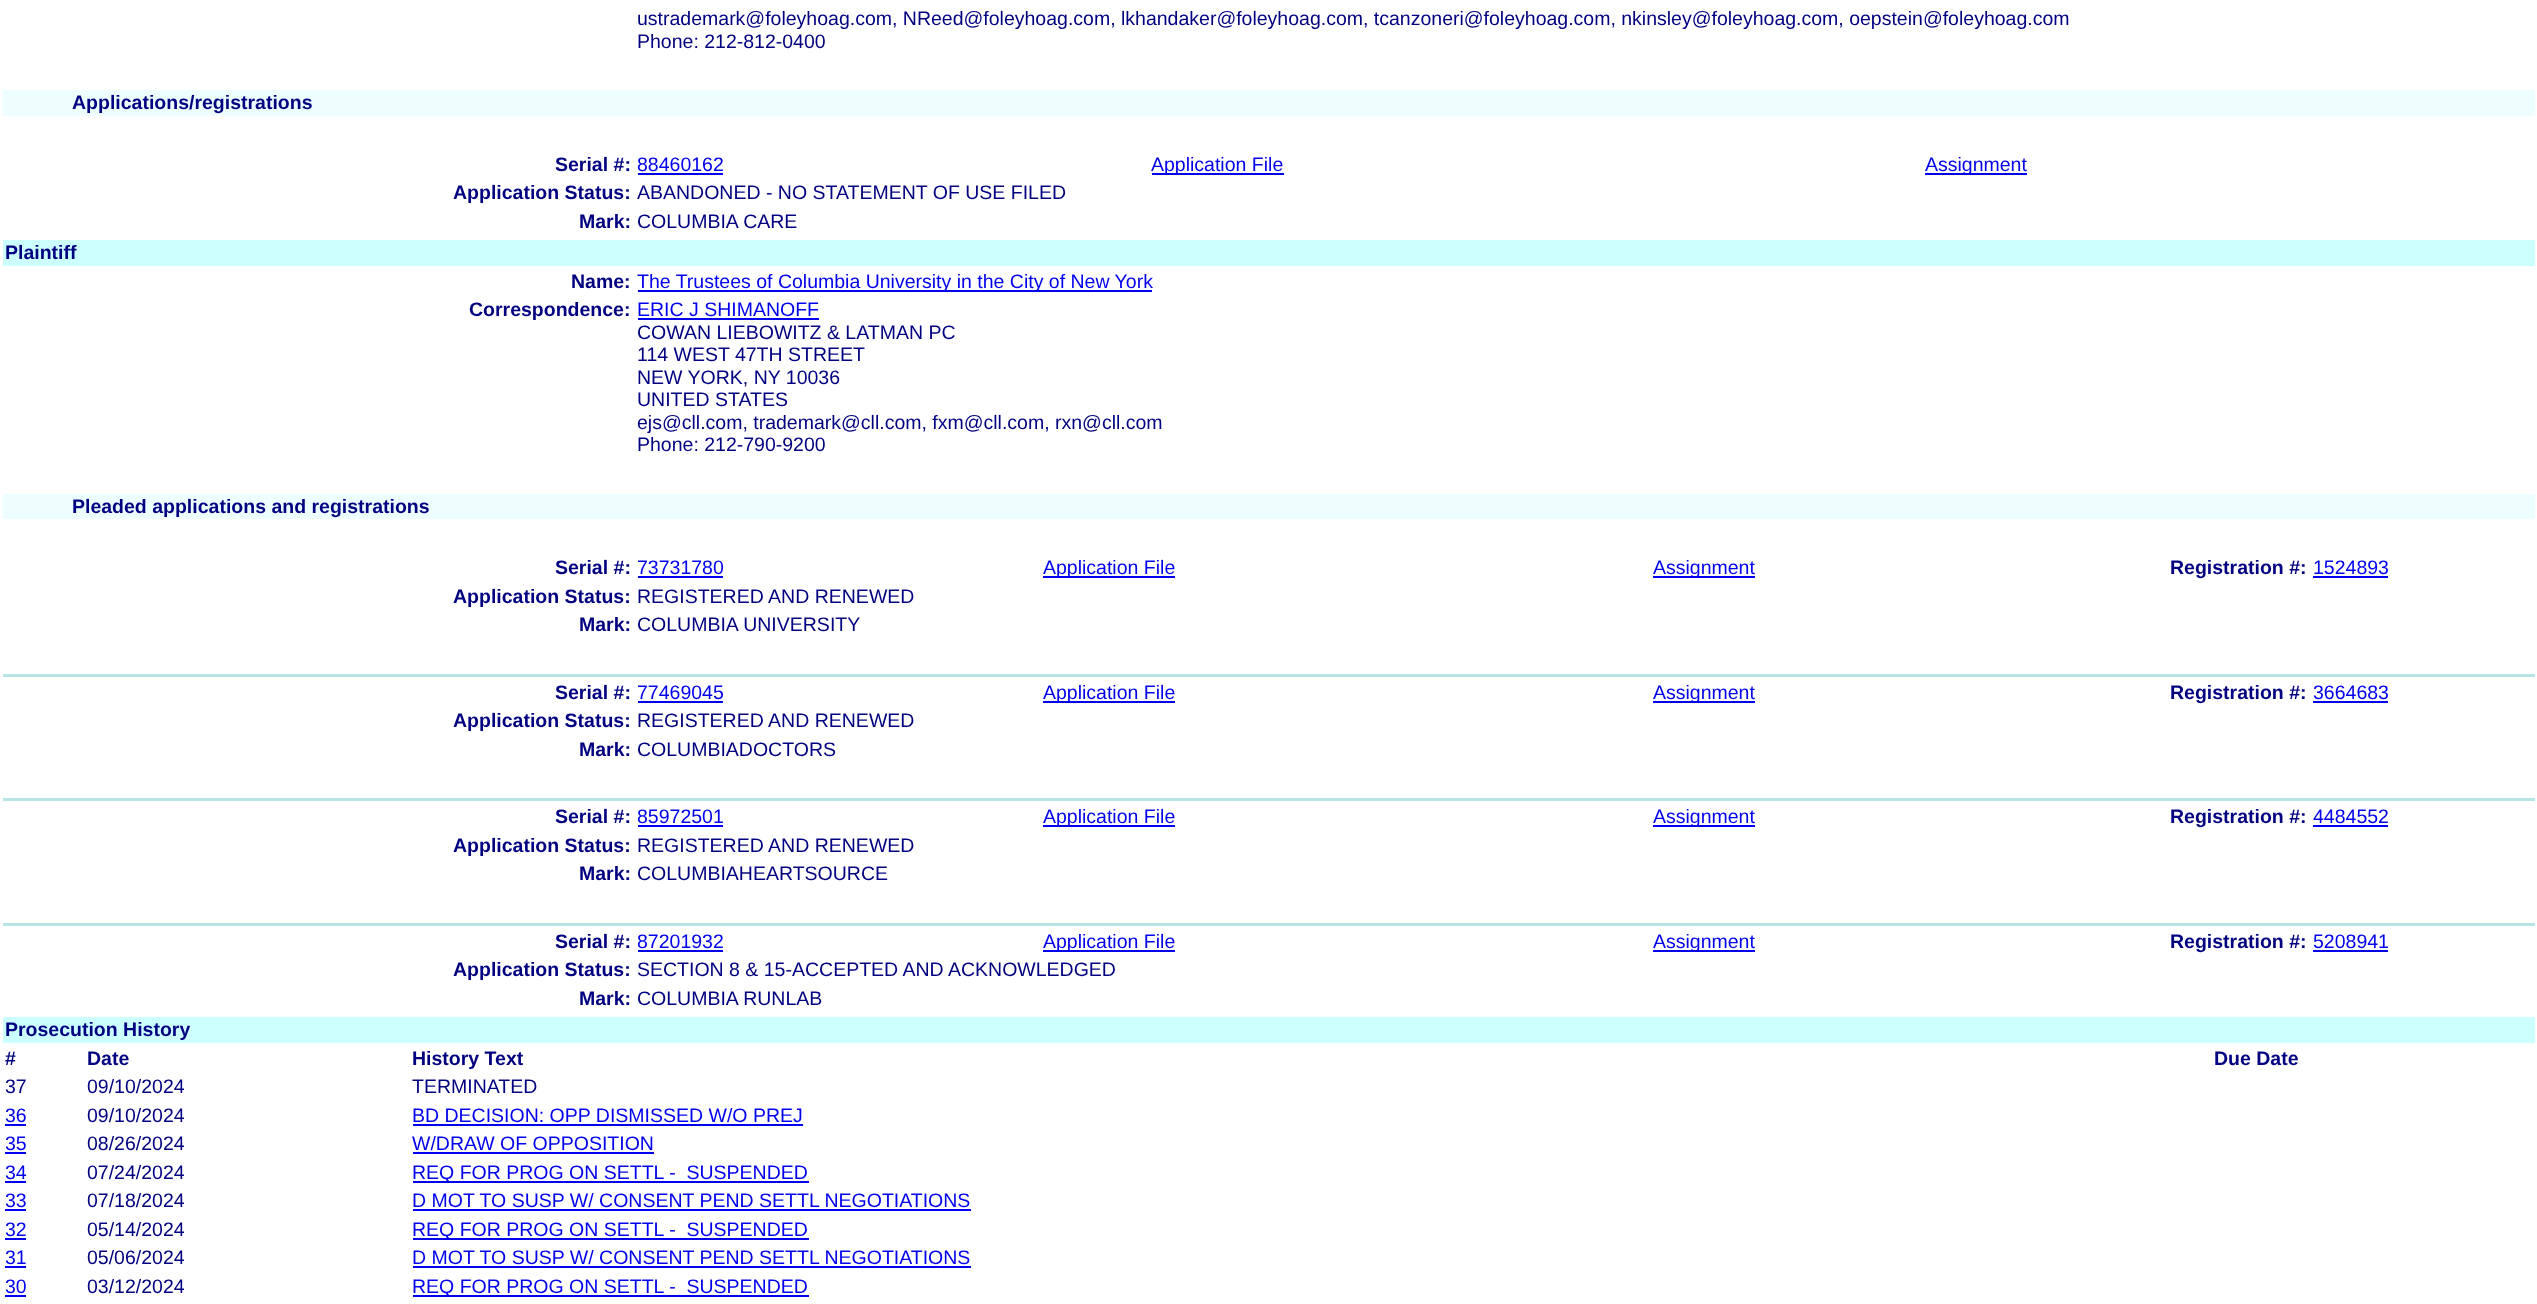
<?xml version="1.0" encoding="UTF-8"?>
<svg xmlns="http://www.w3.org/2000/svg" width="2537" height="1304">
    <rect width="100%" height="100%" fill="#FFFFFF"/>
    <text font-family="Liberation Sans" font-size="19.5" fill="#000080">
        <tspan x="637" y="25">ustrademark@foleyhoag.com, NReed@foleyhoag.com, lkhandaker@foleyhoag.com, tcanzoneri@foleyhoag.com, nkinsley@foleyhoag.com, oepstein@foleyhoag.com</tspan>
        <tspan x="637" y="48">Phone: 212-812-0400</tspan>
    </text>
    <rect x="3" y="90" width="2532" height="26" fill="#EEFDFF"/>
    <text x="72" y="109" font-family="Liberation Sans" font-size="19.5" font-weight="700" fill="#000080">Applications/registrations</text>
    <text x="555" y="171" font-family="Liberation Sans" font-size="19.5" font-weight="700" fill="#000080">Serial #:</text>
    <text x="637" y="171" font-family="Liberation Sans" font-size="19.5" fill="#0000EE">88460162</text>
    <rect x="638" y="173" width="85" height="2" fill="#0000EE"/>
    <rect x="1152" y="173" width="132" height="2" fill="#0000EE"/>
    <text x="1151" y="171" font-family="Liberation Sans" font-size="19.5" fill="#0000EE">Application File</text>
    <rect x="1925" y="173" width="102" height="2" fill="#0000EE"/>
    <text x="1925" y="171" font-family="Liberation Sans" font-size="19.5" fill="#0000EE">Assignment</text>
    <text x="453" y="199" font-family="Liberation Sans" font-size="19.5" font-weight="700" fill="#000080">Application Status:</text>
    <text x="637" y="199" font-family="Liberation Sans" font-size="19.5" fill="#000080">ABANDONED - NO STATEMENT OF USE FILED</text>
    <text x="579" y="228" font-family="Liberation Sans" font-size="19.5" font-weight="700" fill="#000080">Mark:</text>
    <text x="637" y="228" font-family="Liberation Sans" font-size="19.5" fill="#000080">COLUMBIA CARE</text>
    <rect x="3" y="240" width="2532" height="26" fill="#CCFFFF"/>
    <text x="5" y="259" font-family="Liberation Sans" font-size="19.5" font-weight="700" fill="#000080">Plaintiff</text>
    <text x="571" y="288" font-family="Liberation Sans" font-size="19.5" font-weight="700" fill="#000080">Name:</text>
    <rect x="638" y="290" width="514" height="2" fill="#0000EE"/>
    <text x="637" y="288" font-family="Liberation Sans" font-size="19.5" fill="#0000EE">The Trustees of Columbia University in the City of New York</text>
    <text x="469" y="316" font-family="Liberation Sans" font-size="19.5" font-weight="700" fill="#000080">Correspondence:</text>
    <text x="637" y="316" font-family="Liberation Sans" font-size="19.5" fill="#0000EE">ERIC J SHIMANOFF</text>
    <rect x="638" y="318" width="181" height="2" fill="#0000EE"/>
    <text font-family="Liberation Sans" font-size="19.5" fill="#000080">
        <tspan x="637" y="339">COWAN LIEBOWITZ &amp; LATMAN PC</tspan>
        <tspan x="637" y="361">114 WEST 47TH STREET</tspan>
        <tspan x="637" y="384">NEW YORK, NY 10036</tspan>
        <tspan x="637" y="406">UNITED STATES</tspan>
        <tspan x="637" y="429">ejs@cll.com, trademark@cll.com, fxm@cll.com, rxn@cll.com</tspan>
        <tspan x="637" y="451">Phone: 212-790-9200</tspan>
    </text>
    <rect x="3" y="494" width="2532" height="25" fill="#EEFDFF"/>
    <text x="72" y="513" font-family="Liberation Sans" font-size="19.5" font-weight="700" fill="#000080">Pleaded applications and registrations</text>
    <text x="555" y="574" font-family="Liberation Sans" font-size="19.5" font-weight="700" fill="#000080">Serial #:</text>
    <text x="637" y="574" font-family="Liberation Sans" font-size="19.5" fill="#0000EE">73731780</text>
    <rect x="638" y="576" width="85" height="2" fill="#0000EE"/>
    <rect x="1043" y="576" width="132" height="2" fill="#0000EE"/>
    <text x="1043" y="574" font-family="Liberation Sans" font-size="19.5" fill="#0000EE">Application File</text>
    <rect x="1653" y="576" width="102" height="2" fill="#0000EE"/>
    <text x="1653" y="574" font-family="Liberation Sans" font-size="19.5" fill="#0000EE">Assignment</text>
    <text x="2170" y="574" font-family="Liberation Sans" font-size="19.5" font-weight="700" fill="#000080">Registration #:</text>
    <text x="2313" y="574" font-family="Liberation Sans" font-size="19.5" fill="#0000EE">1524893</text>
    <rect x="2313" y="576" width="75" height="2" fill="#0000EE"/>
    <text x="453" y="603" font-family="Liberation Sans" font-size="19.5" font-weight="700" fill="#000080">Application Status:</text>
    <text x="637" y="603" font-family="Liberation Sans" font-size="19.5" fill="#000080">REGISTERED AND RENEWED</text>
    <text x="579" y="631" font-family="Liberation Sans" font-size="19.5" font-weight="700" fill="#000080">Mark:</text>
    <text x="637" y="631" font-family="Liberation Sans" font-size="19.5" fill="#000080">COLUMBIA UNIVERSITY</text>
    <rect x="3" y="674" width="2532" height="3" fill="#B7E5E5"/>
    <text x="555" y="699" font-family="Liberation Sans" font-size="19.5" font-weight="700" fill="#000080">Serial #:</text>
    <text x="637" y="699" font-family="Liberation Sans" font-size="19.5" fill="#0000EE">77469045</text>
    <rect x="638" y="701" width="85" height="2" fill="#0000EE"/>
    <rect x="1043" y="701" width="132" height="2" fill="#0000EE"/>
    <text x="1043" y="699" font-family="Liberation Sans" font-size="19.5" fill="#0000EE">Application File</text>
    <rect x="1653" y="701" width="102" height="2" fill="#0000EE"/>
    <text x="1653" y="699" font-family="Liberation Sans" font-size="19.5" fill="#0000EE">Assignment</text>
    <text x="2170" y="699" font-family="Liberation Sans" font-size="19.5" font-weight="700" fill="#000080">Registration #:</text>
    <text x="2313" y="699" font-family="Liberation Sans" font-size="19.5" fill="#0000EE">3664683</text>
    <rect x="2313" y="701" width="75" height="2" fill="#0000EE"/>
    <text x="453" y="727" font-family="Liberation Sans" font-size="19.5" font-weight="700" fill="#000080">Application Status:</text>
    <text x="637" y="727" font-family="Liberation Sans" font-size="19.5" fill="#000080">REGISTERED AND RENEWED</text>
    <text x="579" y="756" font-family="Liberation Sans" font-size="19.5" font-weight="700" fill="#000080">Mark:</text>
    <text x="637" y="756" font-family="Liberation Sans" font-size="19.5" fill="#000080">COLUMBIADOCTORS</text>
    <rect x="3" y="798" width="2532" height="3" fill="#B7E5E5"/>
    <text x="555" y="823" font-family="Liberation Sans" font-size="19.5" font-weight="700" fill="#000080">Serial #:</text>
    <text x="637" y="823" font-family="Liberation Sans" font-size="19.5" fill="#0000EE">85972501</text>
    <rect x="638" y="825" width="85" height="2" fill="#0000EE"/>
    <rect x="1043" y="825" width="132" height="2" fill="#0000EE"/>
    <text x="1043" y="823" font-family="Liberation Sans" font-size="19.5" fill="#0000EE">Application File</text>
    <rect x="1653" y="825" width="102" height="2" fill="#0000EE"/>
    <text x="1653" y="823" font-family="Liberation Sans" font-size="19.5" fill="#0000EE">Assignment</text>
    <text x="2170" y="823" font-family="Liberation Sans" font-size="19.5" font-weight="700" fill="#000080">Registration #:</text>
    <text x="2313" y="823" font-family="Liberation Sans" font-size="19.5" fill="#0000EE">4484552</text>
    <rect x="2313" y="825" width="75" height="2" fill="#0000EE"/>
    <text x="453" y="852" font-family="Liberation Sans" font-size="19.5" font-weight="700" fill="#000080">Application Status:</text>
    <text x="637" y="852" font-family="Liberation Sans" font-size="19.5" fill="#000080">REGISTERED AND RENEWED</text>
    <text x="579" y="880" font-family="Liberation Sans" font-size="19.5" font-weight="700" fill="#000080">Mark:</text>
    <text x="637" y="880" font-family="Liberation Sans" font-size="19.5" fill="#000080">COLUMBIAHEARTSOURCE</text>
    <rect x="3" y="923" width="2532" height="3" fill="#B7E5E5"/>
    <text x="555" y="948" font-family="Liberation Sans" font-size="19.5" font-weight="700" fill="#000080">Serial #:</text>
    <text x="637" y="948" font-family="Liberation Sans" font-size="19.5" fill="#0000EE">87201932</text>
    <rect x="638" y="950" width="85" height="2" fill="#0000EE"/>
    <rect x="1043" y="950" width="132" height="2" fill="#0000EE"/>
    <text x="1043" y="948" font-family="Liberation Sans" font-size="19.5" fill="#0000EE">Application File</text>
    <rect x="1653" y="950" width="102" height="2" fill="#0000EE"/>
    <text x="1653" y="948" font-family="Liberation Sans" font-size="19.5" fill="#0000EE">Assignment</text>
    <text x="2170" y="948" font-family="Liberation Sans" font-size="19.5" font-weight="700" fill="#000080">Registration #:</text>
    <text x="2313" y="948" font-family="Liberation Sans" font-size="19.5" fill="#0000EE">5208941</text>
    <rect x="2313" y="950" width="75" height="2" fill="#0000EE"/>
    <text x="453" y="976" font-family="Liberation Sans" font-size="19.5" font-weight="700" fill="#000080">Application Status:</text>
    <text x="637" y="976" font-family="Liberation Sans" font-size="19.5" fill="#000080">SECTION 8 &amp; 15-ACCEPTED AND ACKNOWLEDGED</text>
    <text x="579" y="1005" font-family="Liberation Sans" font-size="19.5" font-weight="700" fill="#000080">Mark:</text>
    <text x="637" y="1005" font-family="Liberation Sans" font-size="19.5" fill="#000080">COLUMBIA RUNLAB</text>
    <rect x="3" y="1017" width="2532" height="26" fill="#CCFFFF"/>
    <text font-family="Liberation Sans" font-size="19.5" font-weight="700" fill="#000080">
        <tspan x="5" y="1036">Prosecution History</tspan>
        <tspan x="5" y="1065">#</tspan>
    </text>
    <text x="87" y="1065" font-family="Liberation Sans" font-size="19.5" font-weight="700" fill="#000080">Date</text>
    <text x="412" y="1065" font-family="Liberation Sans" font-size="19.5" font-weight="700" fill="#000080">History Text</text>
    <text x="2214" y="1065" font-family="Liberation Sans" font-size="19.5" font-weight="700" fill="#000080">Due Date</text>
    <text x="5" y="1093" font-family="Liberation Sans" font-size="19.5" fill="#000080">37</text>
    <text x="87" y="1093" font-family="Liberation Sans" font-size="19.5" fill="#000080">09/10/2024</text>
    <text x="412" y="1093" font-family="Liberation Sans" font-size="19.5" fill="#000080">TERMINATED</text>
    <text x="5" y="1122" font-family="Liberation Sans" font-size="19.5" fill="#0000EE">36</text>
    <rect x="5" y="1124" width="21" height="2" fill="#0000EE"/>
    <text x="87" y="1122" font-family="Liberation Sans" font-size="19.5" fill="#000080">09/10/2024</text>
    <text x="412" y="1122" font-family="Liberation Sans" font-size="19.5" fill="#0000EE">BD DECISION: OPP DISMISSED W/O PREJ</text>
    <rect x="413" y="1124" width="390" height="2" fill="#0000EE"/>
    <text x="5" y="1150" font-family="Liberation Sans" font-size="19.5" fill="#0000EE">35</text>
    <rect x="5" y="1152" width="21" height="2" fill="#0000EE"/>
    <text x="87" y="1150" font-family="Liberation Sans" font-size="19.5" fill="#000080">08/26/2024</text>
    <text x="412" y="1150" font-family="Liberation Sans" font-size="19.5" fill="#0000EE">W/DRAW OF OPPOSITION</text>
    <rect x="413" y="1152" width="241" height="2" fill="#0000EE"/>
    <text x="5" y="1179" font-family="Liberation Sans" font-size="19.5" fill="#0000EE">34</text>
    <rect x="5" y="1181" width="21" height="2" fill="#0000EE"/>
    <text x="87" y="1179" font-family="Liberation Sans" font-size="19.5" fill="#000080">07/24/2024</text>
    <rect x="413" y="1181" width="396" height="2" fill="#0000EE"/>
    <text x="412" y="1179" font-family="Liberation Sans" font-size="19.5" fill="#0000EE" xml:space="preserve">REQ FOR PROG ON SETTL -  SUSPENDED</text>
    <text x="5" y="1207" font-family="Liberation Sans" font-size="19.5" fill="#0000EE">33</text>
    <rect x="5" y="1209" width="21" height="2" fill="#0000EE"/>
    <text x="87" y="1207" font-family="Liberation Sans" font-size="19.5" fill="#000080">07/18/2024</text>
    <text x="412" y="1207" font-family="Liberation Sans" font-size="19.5" fill="#0000EE">D MOT TO SUSP W/ CONSENT PEND SETTL NEGOTIATIONS</text>
    <rect x="413" y="1209" width="558" height="2" fill="#0000EE"/>
    <text x="5" y="1236" font-family="Liberation Sans" font-size="19.5" fill="#0000EE">32</text>
    <rect x="5" y="1238" width="21" height="2" fill="#0000EE"/>
    <text x="87" y="1236" font-family="Liberation Sans" font-size="19.5" fill="#000080">05/14/2024</text>
    <rect x="413" y="1238" width="396" height="2" fill="#0000EE"/>
    <text x="412" y="1236" font-family="Liberation Sans" font-size="19.5" fill="#0000EE" xml:space="preserve">REQ FOR PROG ON SETTL -  SUSPENDED</text>
    <text x="5" y="1264" font-family="Liberation Sans" font-size="19.5" fill="#0000EE">31</text>
    <rect x="5" y="1266" width="21" height="2" fill="#0000EE"/>
    <text x="87" y="1264" font-family="Liberation Sans" font-size="19.5" fill="#000080">05/06/2024</text>
    <text x="412" y="1264" font-family="Liberation Sans" font-size="19.5" fill="#0000EE">D MOT TO SUSP W/ CONSENT PEND SETTL NEGOTIATIONS</text>
    <rect x="413" y="1266" width="558" height="2" fill="#0000EE"/>
    <text x="5" y="1293" font-family="Liberation Sans" font-size="19.5" fill="#0000EE">30</text>
    <rect x="5" y="1295" width="21" height="2" fill="#0000EE"/>
    <text x="87" y="1293" font-family="Liberation Sans" font-size="19.5" fill="#000080">03/12/2024</text>
    <rect x="413" y="1295" width="396" height="2" fill="#0000EE"/>
    <text x="412" y="1293" font-family="Liberation Sans" font-size="19.5" fill="#0000EE" xml:space="preserve">REQ FOR PROG ON SETTL -  SUSPENDED</text>
</svg>
